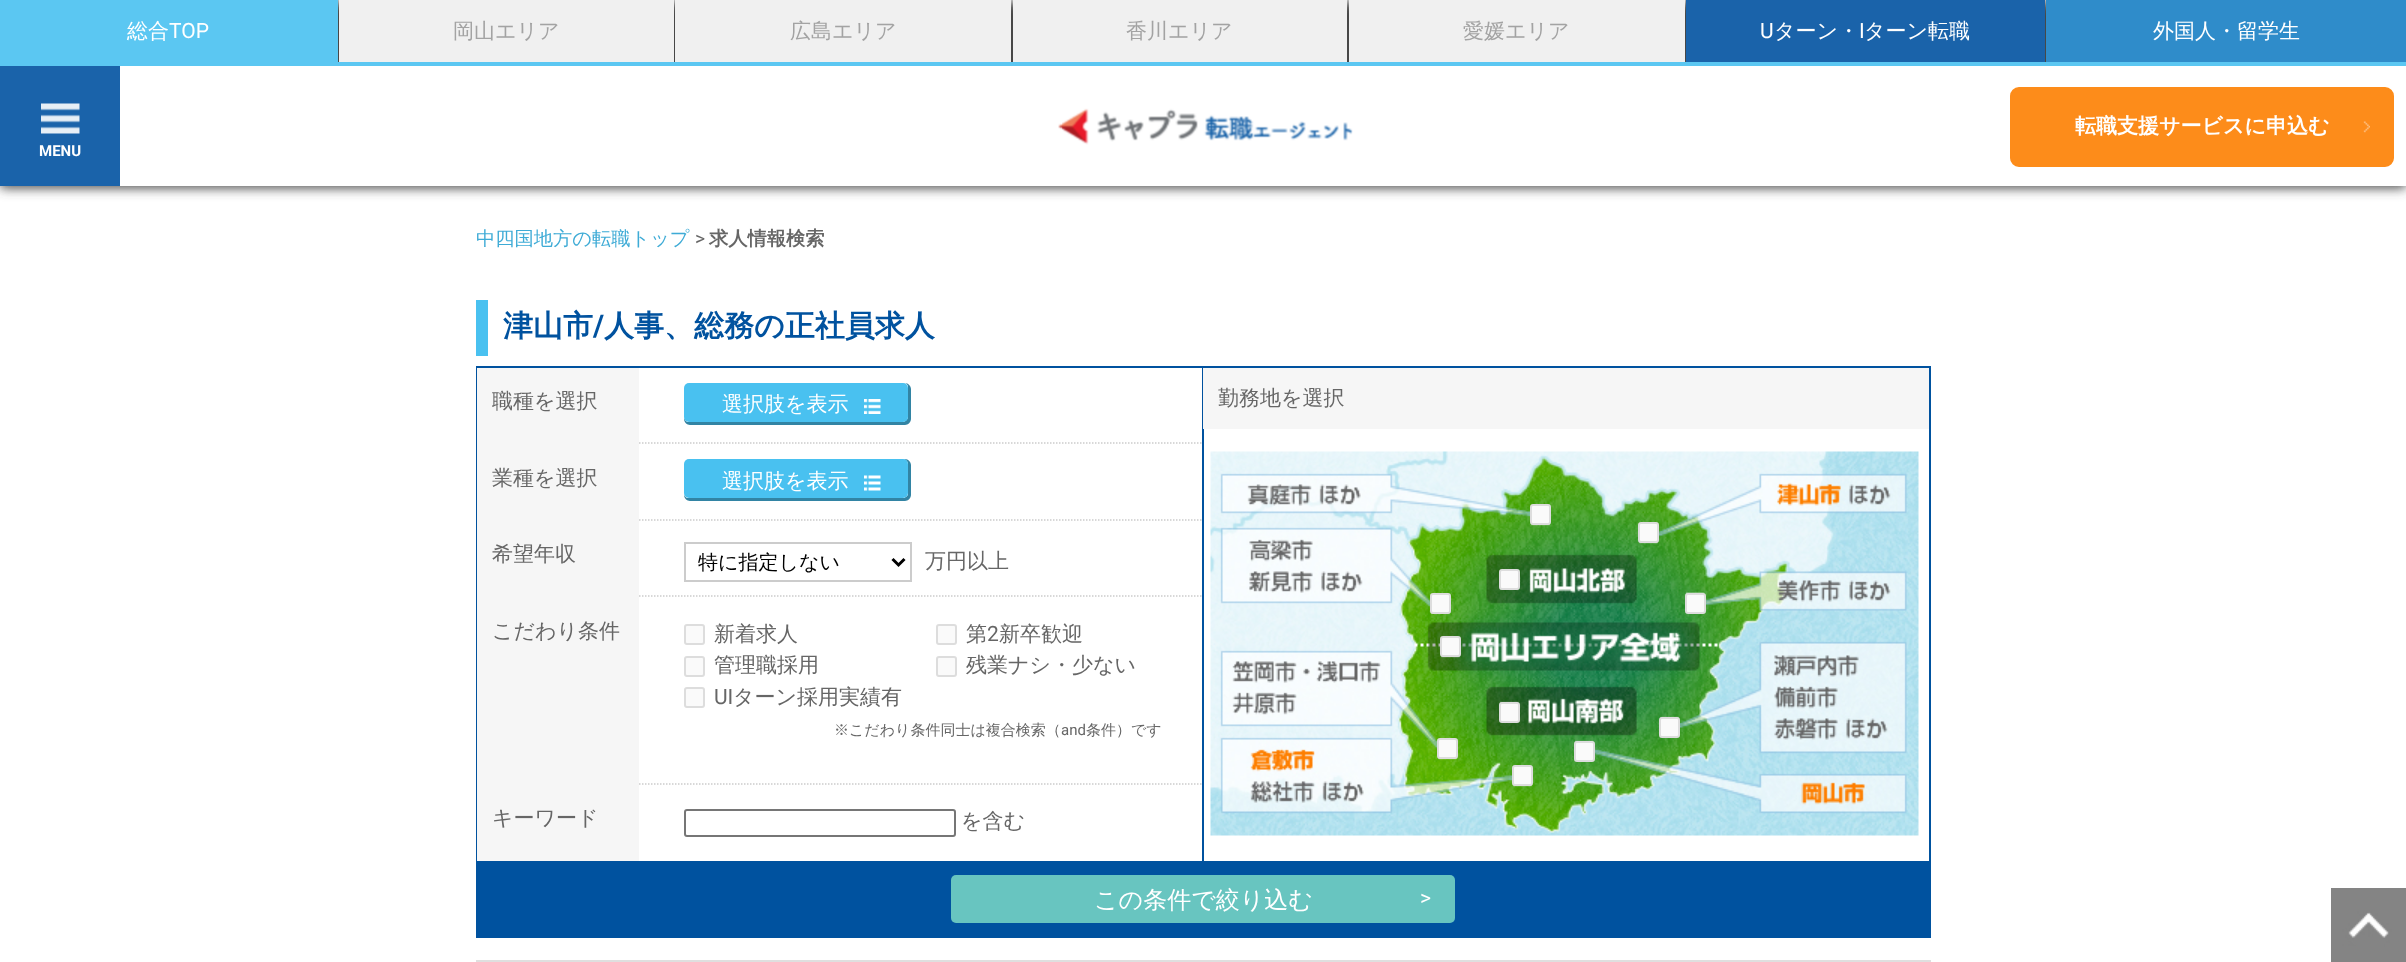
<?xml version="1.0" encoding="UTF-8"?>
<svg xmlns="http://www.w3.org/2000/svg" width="2406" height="962">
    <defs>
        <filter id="blur1" x="-50%" y="-200%" width="200%" height="500%"><feGaussianBlur stdDeviation="6"/></filter>
        <clipPath id="clip1"><rect x="698" y="549" width="183" height="26"/></clipPath>
    </defs>
    <rect width="100%" height="100%" fill="#FFFFFF"/>
    <rect x="0" y="2" width="2406" height="186" fill="#474747" filter="url(#blur1)"/>
    <rect x="0" y="62" width="2406" height="4" fill="#5BC7F2"/>
    <rect x="0" y="0" width="338" height="62" fill="#5BC7F2"/>
    <text x="127" y="38" font-family="WenQuanYi Zen Hei" font-size="21" font-weight="500" fill="#FFFFFF">総合</text>
    <text x="169" y="38" font-family="Roboto" font-size="21" fill="#FFFFFF">TOP</text>
    <rect x="339" y="0" width="335" height="62" fill="#F0F0F0"/>
    <text x="453" y="38" font-family="WenQuanYi Zen Hei" font-size="21" font-weight="500" fill="#A3A3A3">岡山エリア</text>
    <rect x="675" y="0" width="336" height="62" fill="#F0F0F0"/>
    <text x="790" y="38" font-family="WenQuanYi Zen Hei" font-size="21" font-weight="500" fill="#A3A3A3">広島エリア</text>
    <rect x="1013" y="0" width="334" height="62" fill="#F0F0F0"/>
    <text x="1126" y="38" font-family="WenQuanYi Zen Hei" font-size="21" font-weight="500" fill="#A3A3A3">香川エリア</text>
    <rect x="1349" y="0" width="336" height="62" fill="#F0F0F0"/>
    <text x="1463" y="38" font-family="WenQuanYi Zen Hei" font-size="21" font-weight="500" fill="#A3A3A3">愛媛エリア</text>
    <rect x="1686" y="0" width="359" height="62" fill="#1A63AA"/>
    <text x="1760" y="38" font-family="Roboto" font-size="21" fill="#FFFFFF">U</text>
    <text x="1774" y="38" font-family="WenQuanYi Zen Hei" font-size="21" font-weight="500" fill="#FFFFFF">ターン・</text>
    <text x="1859" y="38" font-family="Roboto" font-size="21" fill="#FFFFFF">I</text>
    <text x="1864" y="38" font-family="WenQuanYi Zen Hei" font-size="21" font-weight="500" fill="#FFFFFF">ターン転職</text>
    <rect x="2046" y="0" width="360" height="62" fill="#2F8CCA"/>
    <text x="2153" y="38" font-family="WenQuanYi Zen Hei" font-size="21" font-weight="500" fill="#FFFFFF">外国人・留学生</text>
    <rect x="120" y="66" width="2286" height="120" fill="#FFFFFF"/>
    <image x="1058" y="108" width="295" height="37" href="img_01.png"/>
    <rect x="2011" y="88" width="382" height="78" rx="8" fill="#FD8C1A" stroke="#FD8C1A" stroke-width="2"/>
    <text x="2075" y="133" font-family="WenQuanYi Zen Hei" font-size="21" font-weight="700" fill="#FFFFFF">転職支援サービスに申込む</text>
    <image x="2363" y="121" width="7" height="12" href="img_02.png"/>
    <rect x="0" y="66" width="120" height="120" fill="#1A63AA"/>
    <image x="41" y="103" width="39" height="31" href="img_03.png"/>
    <text x="39" y="156" font-family="Roboto" font-size="15" font-weight="700" fill="#FFFFFF">MENU</text>
    <text x="476" y="245" font-family="WenQuanYi Zen Hei" font-size="19.25" font-weight="500" fill="#3EABD6">中四国地方の転職トップ</text>
    <text x="695" y="245" font-family="Roboto" font-size="19.25" fill="#666666">&gt;</text>
    <text x="709" y="245" font-family="WenQuanYi Zen Hei" font-size="19.25" font-weight="700" fill="#666666">求人情報検索</text>
    <rect x="476" y="300" width="12" height="56" fill="#49C1F0"/>
    <text x="503" y="336" font-family="WenQuanYi Zen Hei" font-size="30" font-weight="700" fill="#00529F">津山市</text>
    <text x="593" y="336" font-family="Roboto" font-size="30" font-weight="700" fill="#00529F">/</text>
    <text x="604" y="336" font-family="WenQuanYi Zen Hei" font-size="30" font-weight="700" fill="#00529F">人事、総務の正社員求人</text>
    <rect x="477" y="367" width="1453" height="495" fill="none" stroke="#00529F" stroke-width="2"/>
    <rect x="1202" y="368" width="2" height="493" fill="#00529F"/>
    <path d="M 477 443 H 1201.5" fill="none" stroke="#CCCCCC" stroke-width="1.5" stroke-dasharray="1.5 1.5"/>
    <path d="M 477 520 H 1201.5" fill="none" stroke="#CCCCCC" stroke-width="1.5" stroke-dasharray="1.5 1.5"/>
    <path d="M 477 596 H 1201.5" fill="none" stroke="#CCCCCC" stroke-width="1.5" stroke-dasharray="1.5 1.5"/>
    <path d="M 477 784 H 1201.5" fill="none" stroke="#CCCCCC" stroke-width="1.5" stroke-dasharray="1.5 1.5"/>
    <rect x="477" y="368" width="162" height="493" fill="#F6F6F6"/>
    <text x="492" y="408" font-family="WenQuanYi Zen Hei" font-size="21" font-weight="500" fill="#666666">職種を選択</text>
    <path d="M 684 417 V 419 C 684 422 687 425 690 425 H 905 C 908 425 911 422 911 419 V 389 C 911 386 908 383 905 383 C 907 384 908 385 908 387 V 417 C 908 419 905 422 903 422 H 688 C 686 422 684 419 684 417 Z" fill="#3284A4"/>
    <rect x="684" y="383" width="224" height="39" rx="5" fill="#49C1F0"/>
    <text x="722" y="411" font-family="WenQuanYi Zen Hei" font-size="21" font-weight="500" fill="#FFFFFF">選択肢を表示</text>
    <image x="864" y="399" width="17" height="15" href="img_04.png"/>
    <text x="492" y="485" font-family="WenQuanYi Zen Hei" font-size="21" font-weight="500" fill="#666666">業種を選択</text>
    <path d="M 905 459 H 903 C 905 459 908 461 908 464 V 494 C 908 496 905 498 903 498 H 688 C 686 498 684 496 684 494 V 495 C 684 498 687 501 690 501 H 905 C 908 501 911 498 911 495 V 465 C 911 462 908 459 905 459 Z" fill="#3284A4"/>
    <rect x="684" y="459" width="224" height="39" rx="5" fill="#49C1F0"/>
    <text x="722" y="488" font-family="WenQuanYi Zen Hei" font-size="21" font-weight="500" fill="#FFFFFF">選択肢を表示</text>
    <image x="864" y="475" width="17" height="16" href="img_05.png"/>
    <text x="492" y="561" font-family="WenQuanYi Zen Hei" font-size="21" font-weight="500" fill="#666666">希望年収</text>
    <rect x="685" y="543" width="226" height="38" fill="none" stroke="#CCCCCC" stroke-width="2"/>
    <path d="M 892.5 559 L 898.5 565 L 904.5 559" fill="none" stroke="#000000" stroke-width="3"/>
    <g clip-path="url(#clip1)">
        <text x="698" y="569" font-family="WenQuanYi Zen Hei" font-size="20" font-weight="500" fill="#000000">特に指定しない</text>
    </g>
    <text x="925" y="568" font-family="WenQuanYi Zen Hei" font-size="21" font-weight="500" fill="#666666">万円以上</text>
    <text x="492" y="638" font-family="WenQuanYi Zen Hei" font-size="21" font-weight="500" fill="#666666">こだわり条件</text>
    <rect x="685" y="625" width="19" height="19" rx="2" fill="#FAFAFA" stroke="#DDDDDD" stroke-width="2"/>
    <text x="714" y="641" font-family="WenQuanYi Zen Hei" font-size="21" font-weight="500" fill="#666666">新着求人</text>
    <rect x="937" y="625" width="19" height="19" rx="2" fill="#FAFAFA" stroke="#DDDDDD" stroke-width="2"/>
    <text x="966" y="641" font-family="WenQuanYi Zen Hei" font-size="21" font-weight="500" fill="#666666">第</text>
    <text x="987" y="641" font-family="Roboto" font-size="21" fill="#666666">2</text>
    <text x="999" y="641" font-family="WenQuanYi Zen Hei" font-size="21" font-weight="500" fill="#666666">新卒歓迎</text>
    <rect x="685" y="657" width="19" height="19" rx="2" fill="#FAFAFA" stroke="#DDDDDD" stroke-width="2"/>
    <text x="714" y="672" font-family="WenQuanYi Zen Hei" font-size="21" font-weight="500" fill="#666666">管理職採用</text>
    <rect x="937" y="657" width="19" height="19" rx="2" fill="#FAFAFA" stroke="#DDDDDD" stroke-width="2"/>
    <text x="966" y="672" font-family="WenQuanYi Zen Hei" font-size="21" font-weight="500" fill="#666666">残業ナシ・少ない</text>
    <rect x="685" y="688" width="19" height="19" rx="2" fill="#FAFAFA" stroke="#DDDDDD" stroke-width="2"/>
    <text x="714" y="704" font-family="Roboto" font-size="21" fill="#666666">UI</text>
    <text x="733" y="704" font-family="WenQuanYi Zen Hei" font-size="21" font-weight="500" fill="#666666">ターン採用実績有</text>
    <text x="834" y="735" font-family="WenQuanYi Zen Hei" font-size="15" font-weight="500" fill="#666666">※こだわり条件同士は複合検索（</text>
    <text x="1061" y="735" font-family="Roboto" font-size="15" fill="#666666">and</text>
    <text x="1086" y="735" font-family="WenQuanYi Zen Hei" font-size="15" font-weight="500" fill="#666666">条件）です</text>
    <text x="492" y="825" font-family="WenQuanYi Zen Hei" font-size="21" font-weight="500" fill="#666666">キーワード</text>
    <rect x="685" y="810" width="270" height="26" rx="2" fill="none" stroke="#767676" stroke-width="2"/>
    <text x="961" y="828" font-family="WenQuanYi Zen Hei" font-size="21" font-weight="500" fill="#666666">を含む</text>
    <rect x="1203" y="368" width="726" height="61" fill="#F6F6F6"/>
    <text x="1218" y="405" font-family="WenQuanYi Zen Hei" font-size="21" font-weight="500" fill="#666666">勤務地を選択</text>
    <image x="1210" y="451" width="709" height="385" href="img_06.png"/>
    <rect x="1531" y="505" width="19" height="19" rx="2" fill="#FAFAFA" stroke="#DDDDDD" stroke-width="2"/>
    <rect x="1639" y="523" width="19" height="19" rx="2" fill="#FAFAFA" stroke="#DDDDDD" stroke-width="2"/>
    <rect x="1500" y="570" width="19" height="19" rx="2" fill="#FAFAFA" stroke="#DDDDDD" stroke-width="2"/>
    <rect x="1431" y="594" width="19" height="19" rx="2" fill="#FAFAFA" stroke="#DDDDDD" stroke-width="2"/>
    <rect x="1686" y="594" width="19" height="19" rx="2" fill="#FAFAFA" stroke="#DDDDDD" stroke-width="2"/>
    <rect x="1441" y="637" width="19" height="19" rx="2" fill="#FAFAFA" stroke="#DDDDDD" stroke-width="2"/>
    <rect x="1500" y="703" width="19" height="19" rx="2" fill="#FAFAFA" stroke="#DDDDDD" stroke-width="2"/>
    <rect x="1660" y="718" width="19" height="19" rx="2" fill="#FAFAFA" stroke="#DDDDDD" stroke-width="2"/>
    <rect x="1438" y="739" width="19" height="19" rx="2" fill="#FAFAFA" stroke="#DDDDDD" stroke-width="2"/>
    <rect x="1575" y="742" width="19" height="19" rx="2" fill="#FAFAFA" stroke="#DDDDDD" stroke-width="2"/>
    <rect x="1513" y="766" width="19" height="19" rx="2" fill="#FAFAFA" stroke="#DDDDDD" stroke-width="2"/>
    <rect x="476" y="863" width="1455" height="75" fill="#00529F"/>
    <rect x="951" y="875" width="504" height="48" rx="5" fill="#68C5C0"/>
    <text x="1094" y="908" font-family="WenQuanYi Zen Hei" font-size="24" font-weight="500" fill="#FFFFFF">この条件で絞り込む</text>
    <text x="1420" y="905" font-family="Roboto" font-size="21" fill="#FFFFFF">&gt;</text>
    <rect x="476" y="960" width="1455" height="2" fill="#DFDFDF"/>
    <image x="2331" y="888" width="75" height="74" href="img_07.png"/>
</svg>
